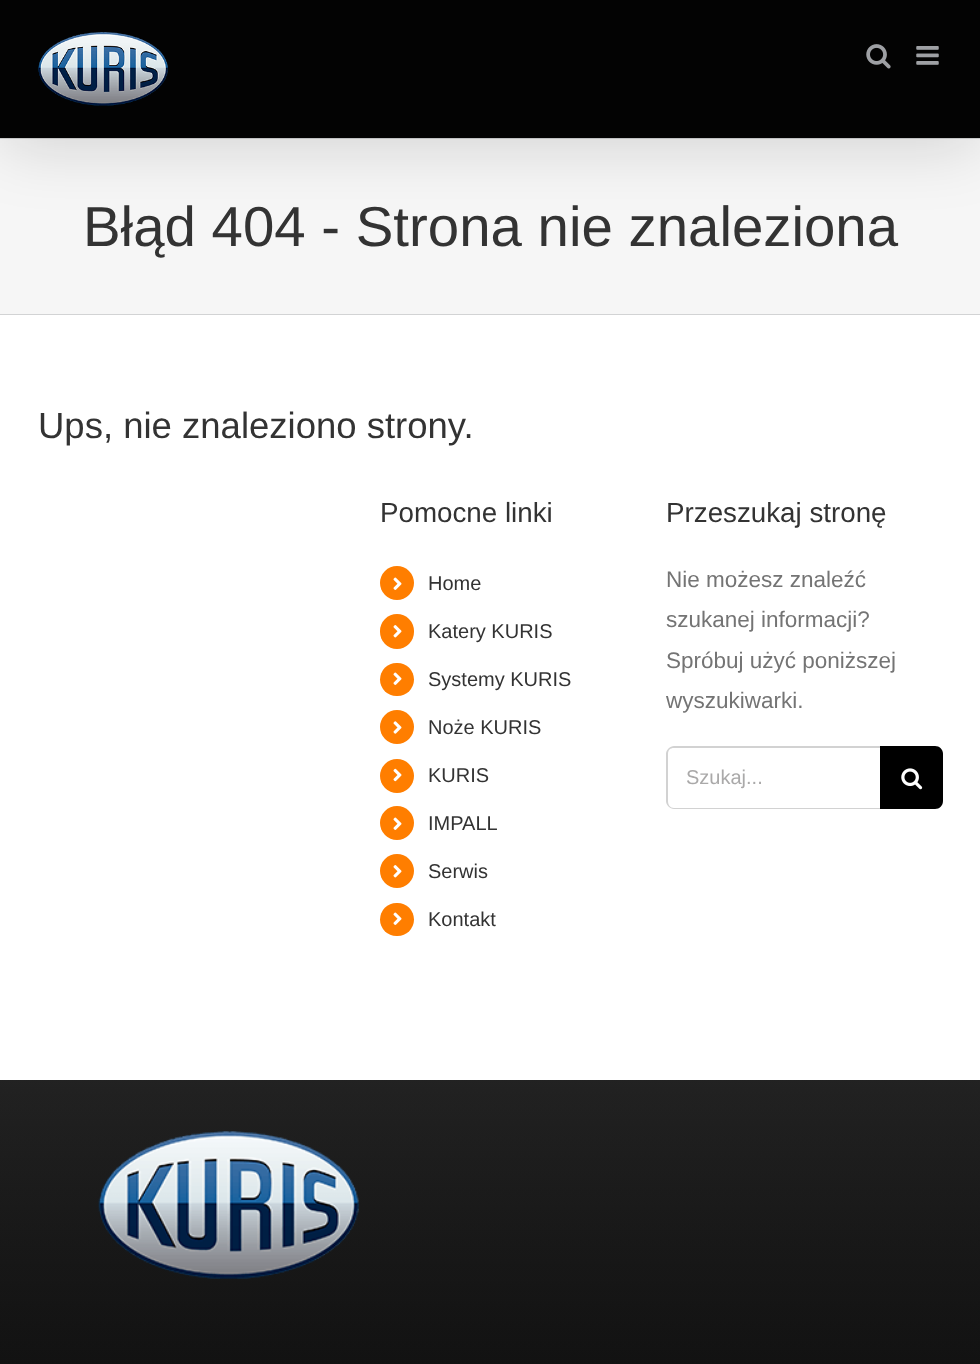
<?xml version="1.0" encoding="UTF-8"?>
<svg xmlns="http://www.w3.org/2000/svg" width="980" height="1364">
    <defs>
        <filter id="blur1" x="-50%" y="-200%" width="200%" height="500%"><feGaussianBlur stdDeviation="31"/></filter>
        <linearGradient id="g1" gradientUnits="userSpaceOnUse" x1="490" y1="1080" x2="490" y2="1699"><stop offset="0" stop-color="#5B5B5B"/><stop offset="1" stop-color="#212121"/></linearGradient>
        <linearGradient id="g2" gradientUnits="userSpaceOnUse" x1="490" y1="1080" x2="490" y2="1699"><stop offset="0" stop-color="#030303" stop-opacity="0.65"/><stop offset="1" stop-color="#030303" stop-opacity="0.88"/></linearGradient>
    </defs>
    <rect width="100%" height="100%" fill="#FFFFFF"/>
    <rect x="0" y="139" width="980" height="175" fill="#F6F6F6"/>
    <rect x="0" y="138" width="980" height="1" fill="#D2D3D4"/>
    <rect x="3" y="15" width="975" height="133" fill="#000000" fill-opacity="0.14" filter="url(#blur1)"/>
    <rect x="0" y="0" width="980" height="138" fill="#030303"/>
    <image x="38" y="32" width="130" height="74" href="img_01.png"/>
    <image x="866" y="44" width="25" height="25" href="img_02.png"/>
    <image x="916" y="46" width="23" height="19" href="img_03.png"/>
    <rect x="0" y="314" width="980" height="1" fill="#D2D3D4"/>
    <text x="83" y="246" font-family="Liberation Sans" font-size="56.4" fill="#333333">Błąd 404 - Strona nie znaleziona</text>
    <text x="38" y="438" font-family="Liberation Sans" font-size="36.5" fill="#333333">Ups, nie znaleziono strony.</text>
    <text x="380" y="522" font-family="Liberation Sans" font-size="27.75" fill="#333333">Pomocne linki</text>
    <circle cx="397" cy="583" r="17" fill="#FF7E00"/>
    <image x="393" y="577" width="9" height="13" href="img_04.png"/>
    <text x="428" y="590" font-family="Liberation Sans" font-size="20" fill="#333333">Home</text>
    <rect x="380" y="614" width="34" height="35" rx="17" fill="#FF7E00"/>
    <image x="393" y="625" width="9" height="13" href="img_05.png"/>
    <text x="428" y="638" font-family="Liberation Sans" font-size="20" fill="#333333">Katery KURIS</text>
    <rect x="380" y="663" width="34" height="33" rx="16.5" fill="#FF7E00"/>
    <image x="393" y="672" width="9" height="13" href="img_04.png"/>
    <text x="428" y="686" font-family="Liberation Sans" font-size="20" fill="#333333">Systemy KURIS</text>
    <circle cx="397" cy="727" r="17" fill="#FF7E00"/>
    <image x="393" y="721" width="9" height="13" href="img_06.png"/>
    <text x="428" y="734" font-family="Liberation Sans" font-size="20" fill="#333333">Noże KURIS</text>
    <circle cx="397" cy="776" r="17" fill="#FF7E00"/>
    <image x="393" y="768" width="9" height="14" href="img_07.png"/>
    <text x="428" y="782" font-family="Liberation Sans" font-size="20" fill="#333333">KURIS</text>
    <circle cx="397" cy="823" r="17" fill="#FF7E00"/>
    <image x="393" y="817" width="9" height="13" href="img_04.png"/>
    <text x="428" y="830" font-family="Liberation Sans" font-size="20" fill="#333333">IMPALL</text>
    <circle cx="397" cy="871" r="17" fill="#FF7E00"/>
    <image x="393" y="865" width="9" height="13" href="img_05.png"/>
    <text x="428" y="878" font-family="Liberation Sans" font-size="20" fill="#333333">Serwis</text>
    <rect x="380" y="903" width="34" height="33" rx="16.5" fill="#FF7E00"/>
    <image x="393" y="912" width="9" height="13" href="img_04.png"/>
    <text x="428" y="926" font-family="Liberation Sans" font-size="20" fill="#333333">Kontakt</text>
    <text x="666" y="522" font-family="Liberation Sans" font-size="27.75" fill="#333333">Przeszukaj stronę</text>
    <text font-family="Liberation Sans" font-size="22.5" fill="#747474">
        <tspan x="666" y="587">Nie możesz znaleźć</tspan>
        <tspan x="666" y="627">szukanej informacji?</tspan>
        <tspan x="666" y="668">Spróbuj użyć poniższej</tspan>
        <tspan x="666" y="708">wyszukiwarki.</tspan>
    </text>
    <path d="M 674 746 H 880 V 809 H 674 C 670 809 666 805 666 801 V 754 C 666 750 670 746 674 746 Z M 674 748 H 880 V 808 H 674 C 670 808 668 805 668 801 V 754 C 668 750 670 748 674 748 Z" fill="#D2D2D2" fill-rule="evenodd"/>
    <text x="686" y="784" font-family="Liberation Sans" font-size="20" fill="#AAA9A9">Szukaj...</text>
    <path d="M 880 746 H 935 C 939.5 746 943 749.5 943 754 V 801 C 943 805.5 939.5 809 935 809 H 880 Z" fill="#000000"/>
    <image x="901" y="768" width="22" height="22" href="img_08.png"/>
    <rect x="0" y="1080" width="980" height="284" fill="url(#g1)"/>
    <rect x="0" y="1080" width="980" height="284" fill="url(#g2)"/>
    <image x="98" y="1131" width="261" height="148" href="img_09.png"/>
</svg>
